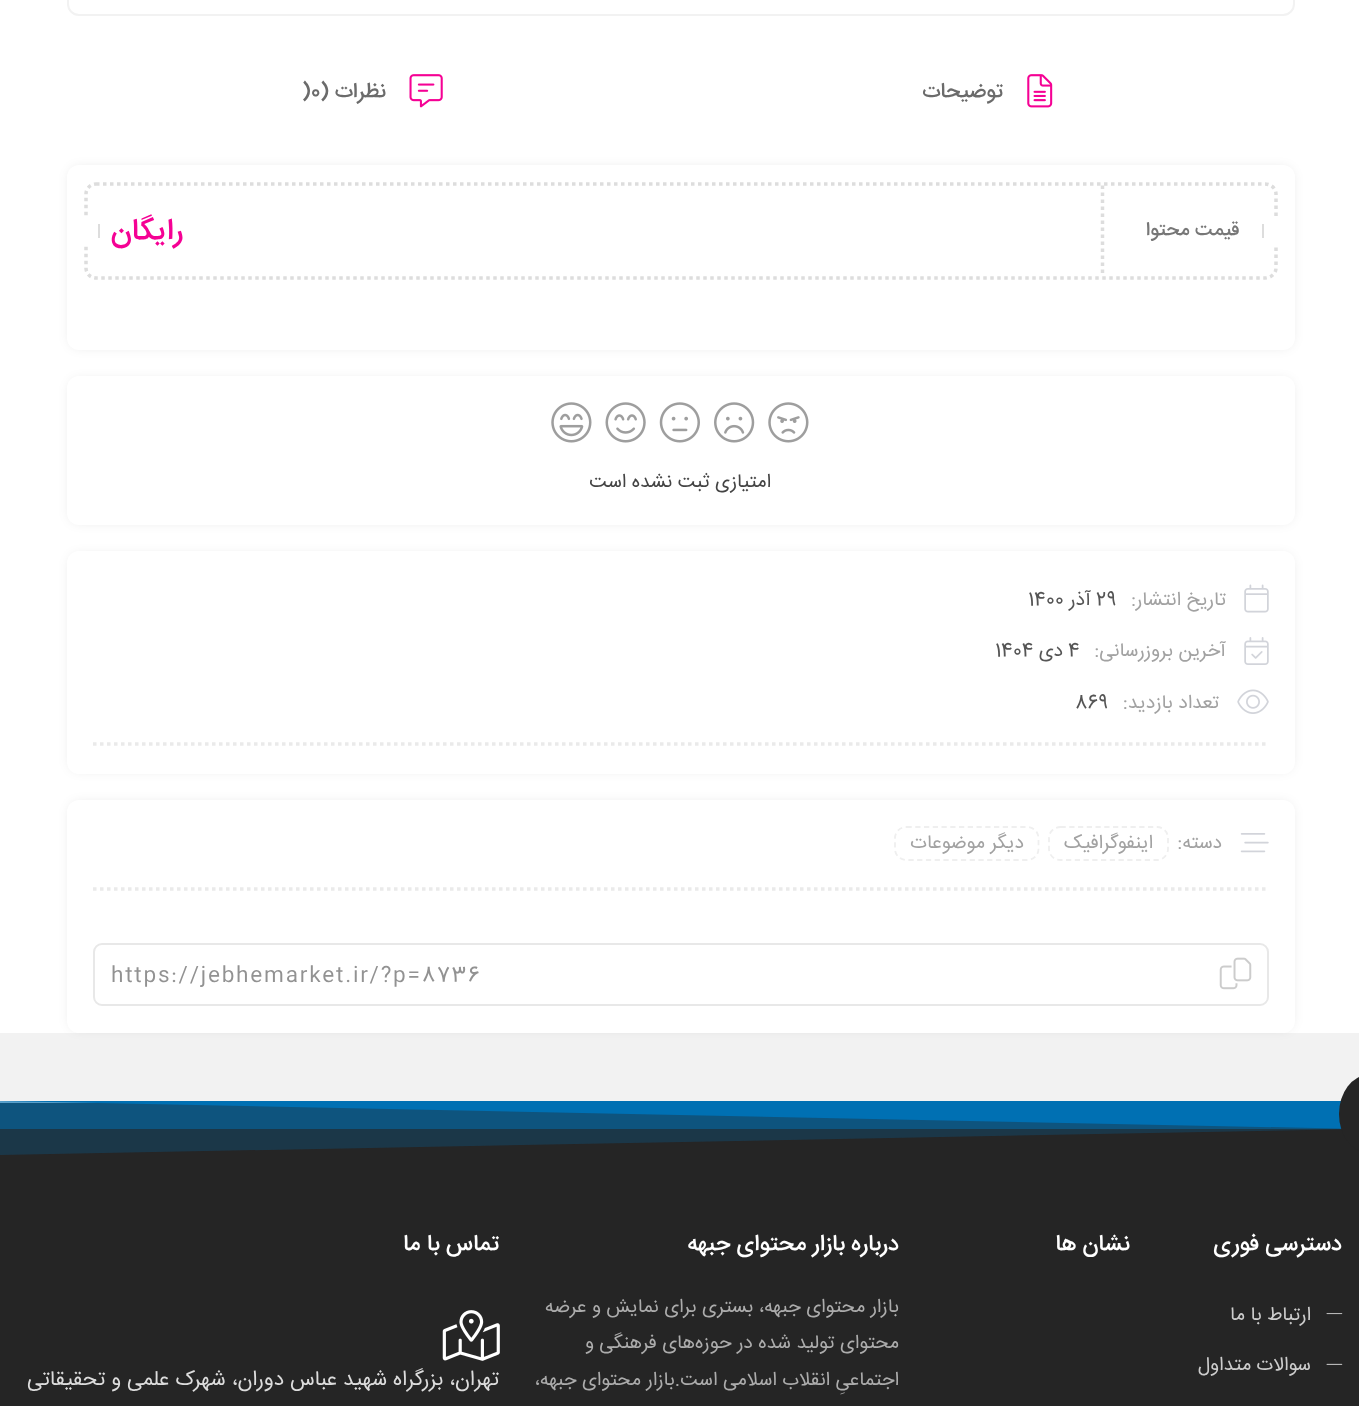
<?xml version="1.0" encoding="UTF-8"?>
<svg xmlns="http://www.w3.org/2000/svg" width="1359" height="1406">
    <defs>
        <filter id="blur1" x="-50%" y="-200%" width="200%" height="500%"><feGaussianBlur stdDeviation="6"/></filter>
    </defs>
    <rect width="100%" height="100%" fill="#FFFFFF"/>
    <rect x="68" y="-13" width="1226" height="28" rx="11" fill="none" stroke="#F2F2F2" stroke-width="2"/>
    <image x="1027" y="74" width="26" height="34" href="img_01.png"/>
    <text x="1003" y="97" font-family="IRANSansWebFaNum" font-size="21" font-weight="500" direction="rtl" fill="#6B6B6B">توضیحات</text>
    <image x="409" y="74" width="34" height="34" href="img_02.png"/>
    <text x="386" y="97" font-family="IRANSansWebFaNum" font-size="21" font-weight="500" direction="rtl" fill="#6B6B6B">نظرات (</text>
    <text x="302" y="97" font-family="IRANSansWebFaNum" font-size="21" font-weight="500" fill="#6B6B6B">)0</text>
    <rect x="70" y="168" width="1222" height="179" rx="9" fill="#000000" fill-opacity="0.1" filter="url(#blur1)"/>
    <rect x="67" y="165" width="1228" height="185" rx="12" fill="#FFFFFF"/>
    <path d="M 96 184 H 1265 C 1271 184 1276 188.5 1276 194 V 268 C 1276 273.5 1271 278 1265 278 H 96 C 90.5 278 86 273.5 86 268 V 194 C 86 188.5 90.5 184 96 184 Z" fill="none" stroke="#DDDDDD" stroke-width="3.5" stroke-dasharray="3.5 3.5"/>
    <circle cx="1276" cy="231" r="14" fill="#FFFFFF"/>
    <rect x="1262" y="224" width="2" height="14" fill="#DDDDDD"/>
    <path d="M 1102.5 185.5 V 276.5" fill="none" stroke="#DDDDDD" stroke-width="3.5" stroke-dasharray="3.5 3.5"/>
    <text x="1239" y="235" font-family="IRANSansWebFaNum" font-size="19.25" font-weight="500" direction="rtl" fill="#777777">قیمت محتوا</text>
    <text x="183" y="239" font-family="IRANSansWebFaNum" font-size="30" font-weight="500" letter-spacing="-0.25" direction="rtl" fill="#F50194">رایگان</text>
    <circle cx="86" cy="231" r="14" fill="#FFFFFF"/>
    <rect x="98" y="224" width="2" height="14" fill="#DDDDDD"/>
    <rect x="70" y="380" width="1222" height="142" rx="9" fill="#000000" fill-opacity="0.1" filter="url(#blur1)"/>
    <rect x="67" y="376" width="1228" height="149" rx="12" fill="#FFFFFF"/>
    <image x="768" y="402" width="41" height="41" href="img_03.png"/>
    <image x="714" y="402" width="41" height="41" href="img_04.png"/>
    <image x="659" y="402" width="41" height="41" href="img_05.png"/>
    <image x="605" y="402" width="41" height="41" href="img_06.png"/>
    <image x="551" y="402" width="41" height="41" href="img_07.png"/>
    <text x="771" y="487" font-family="IRANSansWebFaNum" font-size="19.25" direction="rtl" fill="#444444">امتیازی ثبت نشده است</text>
    <rect x="70" y="555" width="1222" height="215" rx="9" fill="#000000" fill-opacity="0.1" filter="url(#blur1)"/>
    <rect x="67" y="551" width="1228" height="223" rx="12" fill="#FFFFFF"/>
    <path d="M 93 744 H 1269" fill="none" stroke="#EAEAEA" stroke-width="3.5" stroke-dasharray="3.5 3.5"/>
    <image x="1244" y="584" width="25" height="29" href="img_08.png"/>
    <text x="1226" y="605" font-family="IRANSansWebFaNum" font-size="19.25" direction="rtl" fill="#A2A2A2">تاریخ انتشار:</text>
    <text x="1096" y="605" font-family="IRANSansWebFaNum" font-size="19.25" fill="#555555">29</text>
    <text x="1091" y="605" font-family="IRANSansWebFaNum" font-size="19.25" direction="rtl" fill="#555555">آذر</text>
    <text x="1028" y="605" font-family="IRANSansWebFaNum" font-size="19.25" fill="#555555">1400</text>
    <image x="1244" y="637" width="25" height="28" href="img_09.png"/>
    <text x="1226" y="656" font-family="IRANSansWebFaNum" font-size="19.25" direction="rtl" fill="#A2A2A2">آخرین بروزرسانی:</text>
    <text x="1068" y="656" font-family="IRANSansWebFaNum" font-size="19.25" fill="#555555">4</text>
    <text x="1063" y="656" font-family="IRANSansWebFaNum" font-size="19.25" direction="rtl" fill="#555555">دی</text>
    <text x="995" y="656" font-family="IRANSansWebFaNum" font-size="19.25" fill="#555555">1404</text>
    <image x="1237" y="689" width="32" height="25" href="img_10.png"/>
    <text x="1219" y="708" font-family="IRANSansWebFaNum" font-size="19.25" direction="rtl" fill="#A2A2A2">تعداد بازدید:</text>
    <text x="1075" y="708" font-family="IRANSansWebFaNum" font-size="19.25" fill="#555555">869</text>
    <rect x="0" y="1033" width="1359" height="68" fill="#F2F2F2"/>
    <rect x="70" y="803" width="1222" height="226" rx="9" fill="#000000" fill-opacity="0.1" filter="url(#blur1)"/>
    <rect x="67" y="800" width="1228" height="233" rx="12" fill="#FFFFFF"/>
    <path d="M 93 889 H 1269" fill="none" stroke="#EAEAEA" stroke-width="3.5" stroke-dasharray="3.5 3.5"/>
    <image x="1240" y="833" width="29" height="20" href="img_11.png"/>
    <text x="1222" y="848" font-family="IRANSansWebFaNum" font-size="19.25" direction="rtl" fill="#A2A2A2">دسته:</text>
    <path d="M 1060.5 827 H 1157 C 1163 827 1168 832 1168 838 V 849 C 1168 855 1163 860 1157 860 H 1060.5 C 1054 860 1049 855 1049 849 V 838 C 1049 832 1054 827 1060.5 827 Z" fill="none" stroke="#EFEFEF" stroke-width="1.8" stroke-dasharray="5.25 3.5"/>
    <text x="1153" y="848" font-family="IRANSansWebFaNum" font-size="19.25" direction="rtl" fill="#A2A2A2">اینفو‌گرافیک</text>
    <path d="M 906.5 827 H 1027 C 1033.5 827 1038.5 832 1038.5 838 V 849 C 1038.5 855 1033.5 860 1027 860 H 906.5 C 900 860 895 855 895 849 V 838 C 895 832 900 827 906.5 827 Z" fill="none" stroke="#EFEFEF" stroke-width="1.8" stroke-dasharray="5.25 3.5"/>
    <text x="1024" y="848" font-family="IRANSansWebFaNum" font-size="19.25" direction="rtl" fill="#A2A2A2">دیگر موضوعات</text>
    <rect x="94" y="944" width="1174" height="61" rx="8" fill="none" stroke="#E8E8E8" stroke-width="2"/>
    <image x="1219" y="957" width="33" height="33" href="img_12.png"/>
    <text x="111" y="981" font-family="IRANSansWebFaNum" font-size="21" letter-spacing="1.75" fill="#929292">https://jebhemarket.ir/?p=8736</text>
    <rect x="0" y="1101" width="98" height="2" fill="#79B1D3"/>
    <rect x="0" y="1129" width="1359" height="277" fill="#252525"/>
    <rect x="0" y="1103" width="1342" height="26" fill="#134B6C"/>
    <path d="M 0 1101 H 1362 V 1129 Z" fill="#0070B3"/>
    <path d="M 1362 1101 H 0 V 1155 L 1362 1129 Z" fill="#0070B3" fill-opacity="0.25"/>
    <rect x="1339" y="1075" width="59" height="78" rx="39" fill="#252525"/>
    <text x="1342" y="1250" font-family="IRANSansWebFaNum" font-size="22.75" font-weight="500" direction="rtl" fill="#FFFFFF">دسترسی فوری</text>
    <image x="1326" y="1313" width="17" height="2" href="img_13.png"/>
    <text x="1311" y="1320" font-family="IRANSansWebFaNum" font-size="19.25" direction="rtl" fill="#CCCCCC">ارتباط با ما</text>
    <image x="1326" y="1363" width="17" height="2" href="img_14.png"/>
    <text x="1311" y="1370" font-family="IRANSansWebFaNum" font-size="19.25" direction="rtl" fill="#CCCCCC">سوالات متداول</text>
    <text x="1130" y="1250" font-family="IRANSansWebFaNum" font-size="22.75" font-weight="500" direction="rtl" fill="#FFFFFF">نشان ها</text>
    <text x="899" y="1250" font-family="IRANSansWebFaNum" font-size="22.75" font-weight="500" direction="rtl" fill="#FFFFFF">درباره بازار محتوای جبهه</text>
    <text font-family="IRANSansWebFaNum" font-size="19.25" direction="rtl" fill="#ACACAC">
        <tspan x="899" y="1312">بازار محتوای جبهه، بستری برای نمایش و عرضه</tspan>
        <tspan x="899" y="1348">محتوای تولید شده در حوزه‌های فرهنگی و</tspan>
        <tspan x="899" y="1385">اجتماعیِ انقلاب اسلامی است.بازار محتوای جبهه،</tspan>
    </text>
    <text x="499" y="1250" font-family="IRANSansWebFaNum" font-size="22.75" font-weight="500" direction="rtl" fill="#FFFFFF">تماس با ما</text>
    <image x="442" y="1310" width="58" height="51" href="img_15.png"/>
    <text x="499" y="1385" font-family="IRANSansWebFaNum" font-size="21" direction="rtl" fill="#DCDCDC">تهران، بزرگراه شهید عباس دوران، شهرک علمی و تحقیقاتی</text>
</svg>
